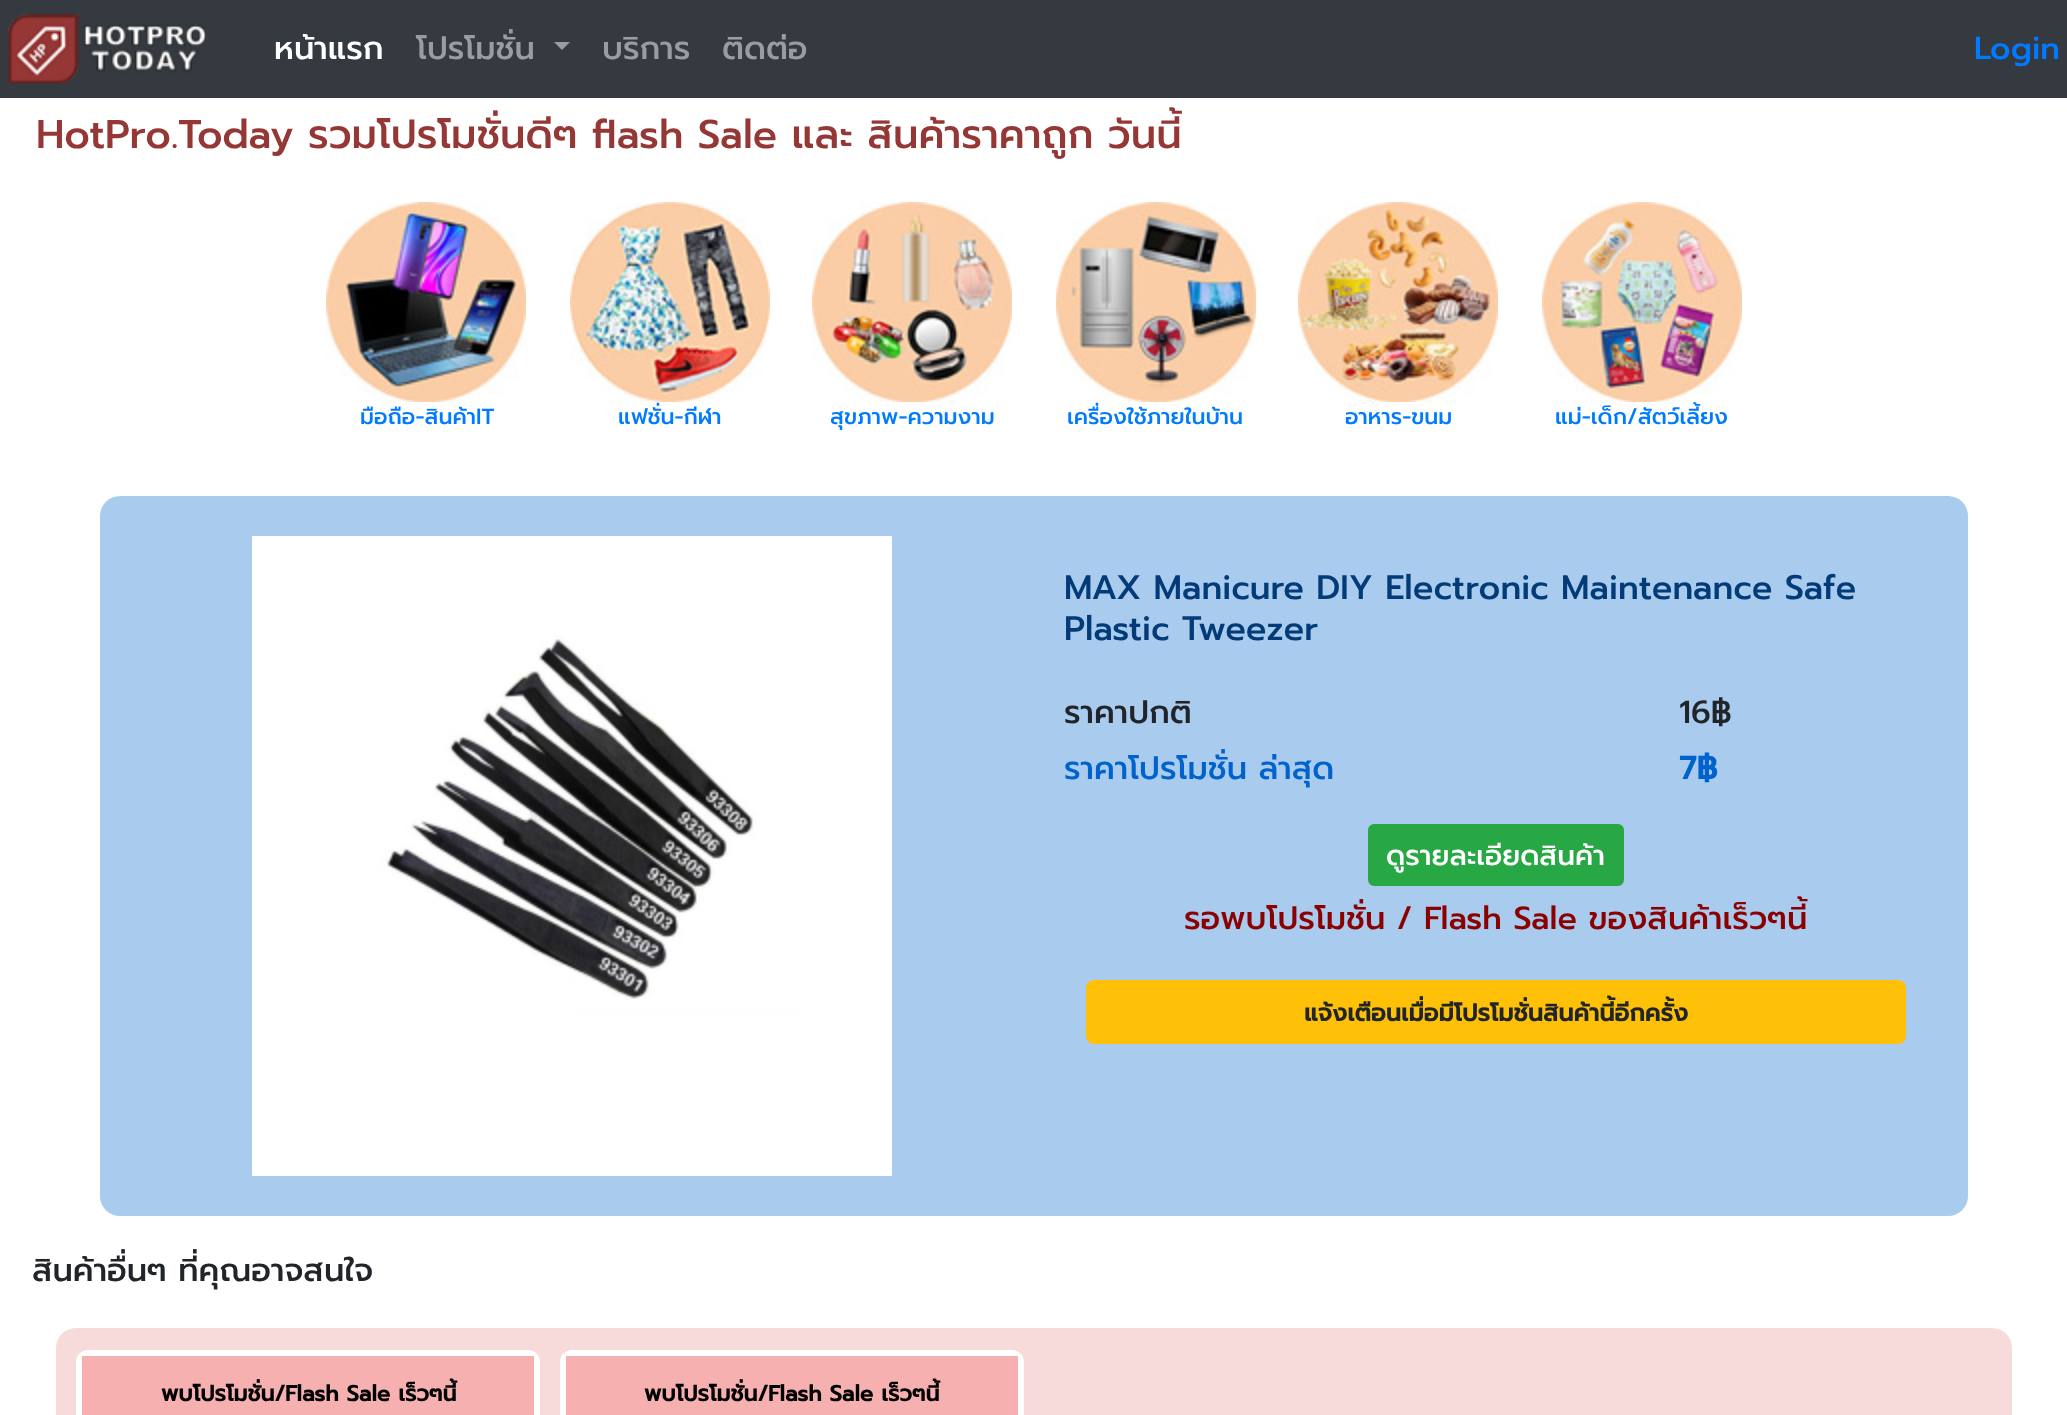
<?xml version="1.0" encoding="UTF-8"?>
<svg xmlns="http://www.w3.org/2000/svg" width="2067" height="1415">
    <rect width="100%" height="100%" fill="#FFFFFF"/>
    <rect x="0" y="0" width="2067" height="98" fill="#343A40"/>
    <image x="8" y="14" width="198" height="70" href="img_01.png"/>
    <text x="274" y="59" font-family="Prompt" font-size="32" font-weight="500" fill="#FFFFFF">หน้าแรก</text>
    <text x="416" y="59" font-family="Prompt" font-size="32" font-weight="500" fill="#9A9DA0">โปรโมชั่น</text>
    <path d="M 554 42 H 570 L 562 50 Z" fill="#9A9DA0"/>
    <text x="602" y="59" font-family="Prompt" font-size="32" font-weight="500" fill="#9A9DA0">บริการ</text>
    <text x="722" y="59" font-family="Prompt" font-size="32" font-weight="500" fill="#9A9DA0">ติดต่อ</text>
    <text x="1974" y="59" font-family="Prompt" font-size="32" font-weight="500" fill="#007BFF">Login</text>
    <text x="36" y="148" font-family="Prompt" font-size="40" font-weight="500" fill="#953735">HotPro.Today รวมโปรโมชั่นดีๆ flash Sale และ สินค้าราคาถูก วันนี้</text>
    <image x="326" y="202" width="200" height="200" href="img_02.png"/>
    <text x="360" y="424" font-family="Prompt" font-size="22" font-weight="500" fill="#007BFF">มือถือ-สินค้าIT</text>
    <image x="570" y="202" width="200" height="200" href="img_03.png"/>
    <text x="618" y="424" font-family="Prompt" font-size="22" font-weight="500" fill="#007BFF">แฟชั่น-กีฬา</text>
    <image x="812" y="202" width="200" height="200" href="img_04.png"/>
    <text x="830" y="424" font-family="Prompt" font-size="22" font-weight="500" fill="#007BFF">สุขภาพ-ความงาม</text>
    <image x="1056" y="202" width="200" height="200" href="img_05.png"/>
    <text x="1067" y="424" font-family="Prompt" font-size="22" font-weight="500" fill="#007BFF">เครื่องใช้ภายในบ้าน</text>
    <image x="1298" y="202" width="200" height="200" href="img_06.png"/>
    <text x="1345" y="424" font-family="Prompt" font-size="22" font-weight="500" fill="#007BFF">อาหาร-ขนม</text>
    <image x="1542" y="202" width="200" height="200" href="img_07.png"/>
    <text x="1555" y="424" font-family="Prompt" font-size="22" font-weight="500" fill="#007BFF">แม่-เด็ก/สัตว์เลี้ยง</text>
    <rect x="100" y="496" width="1868" height="720" rx="20" fill="#A8CBEE"/>
    <image x="252" y="536" width="640" height="640" href="img_08.png"/>
    <text font-family="Prompt" font-size="34" font-weight="500" fill="#023B78">
        <tspan x="1064" y="599">MAX Manicure DIY Electronic Maintenance Safe</tspan>
        <tspan x="1064" y="640">Plastic Tweezer</tspan>
    </text>
    <text x="1064" y="723" font-family="Prompt" font-size="32" font-weight="500" fill="#212529">ราคาปกติ</text>
    <text x="1679" y="723" font-family="Prompt" font-size="32" font-weight="500" fill="#212529">16฿</text>
    <text x="1064" y="779" font-family="Prompt" font-size="32" font-weight="500" fill="#0062CC">ราคาโปรโมชั่น ล่าสุด</text>
    <text x="1679" y="779" font-family="Prompt" font-size="32" font-weight="700" fill="#0062CC">7฿</text>
    <rect x="1369" y="825" width="254" height="60" rx="5" fill="#28A745" stroke="#28A745" stroke-width="2"/>
    <text x="1386" y="865" font-family="Prompt" font-size="28" font-weight="500" fill="#FFFFFF">ดูรายละเอียดสินค้า</text>
    <text x="1184" y="929" font-family="Prompt" font-size="32" font-weight="500" fill="#8B0000">รอพบโปรโมชั่น / Flash Sale ของสินค้าเร็วๆนี้</text>
    <rect x="1087" y="981" width="818" height="62" rx="7" fill="#FFC107" stroke="#FFC107" stroke-width="2"/>
    <text x="1304" y="1021" font-family="Prompt" font-size="24" font-weight="700" fill="#212529">แจ้งเตือนเมื่อมีโปรโมชั่นสินค้านี้อีกครั้ง</text>
    <text x="32" y="1281" font-family="Prompt" font-size="32" font-weight="500" fill="#212529">สินค้าอื่นๆ ที่คุณอาจสนใจ</text>
    <rect x="56" y="1328" width="1956" height="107" rx="20" fill="#F7DBDB"/>
    <rect x="76" y="1350" width="464" height="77" rx="12" fill="#FFFFFF"/>
    <rect x="82" y="1356" width="452" height="59" fill="#F6B0B0"/>
    <text x="161" y="1401" font-family="Prompt" font-size="22" font-weight="700" fill="#000000">พบโปรโมชั่น/Flash Sale เร็วๆนี้</text>
    <rect x="560" y="1350" width="464" height="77" rx="12" fill="#FFFFFF"/>
    <rect x="566" y="1356" width="452" height="59" fill="#F6B0B0"/>
    <text x="644" y="1401" font-family="Prompt" font-size="22" font-weight="700" fill="#000000">พบโปรโมชั่น/Flash Sale เร็วๆนี้</text>
</svg>
